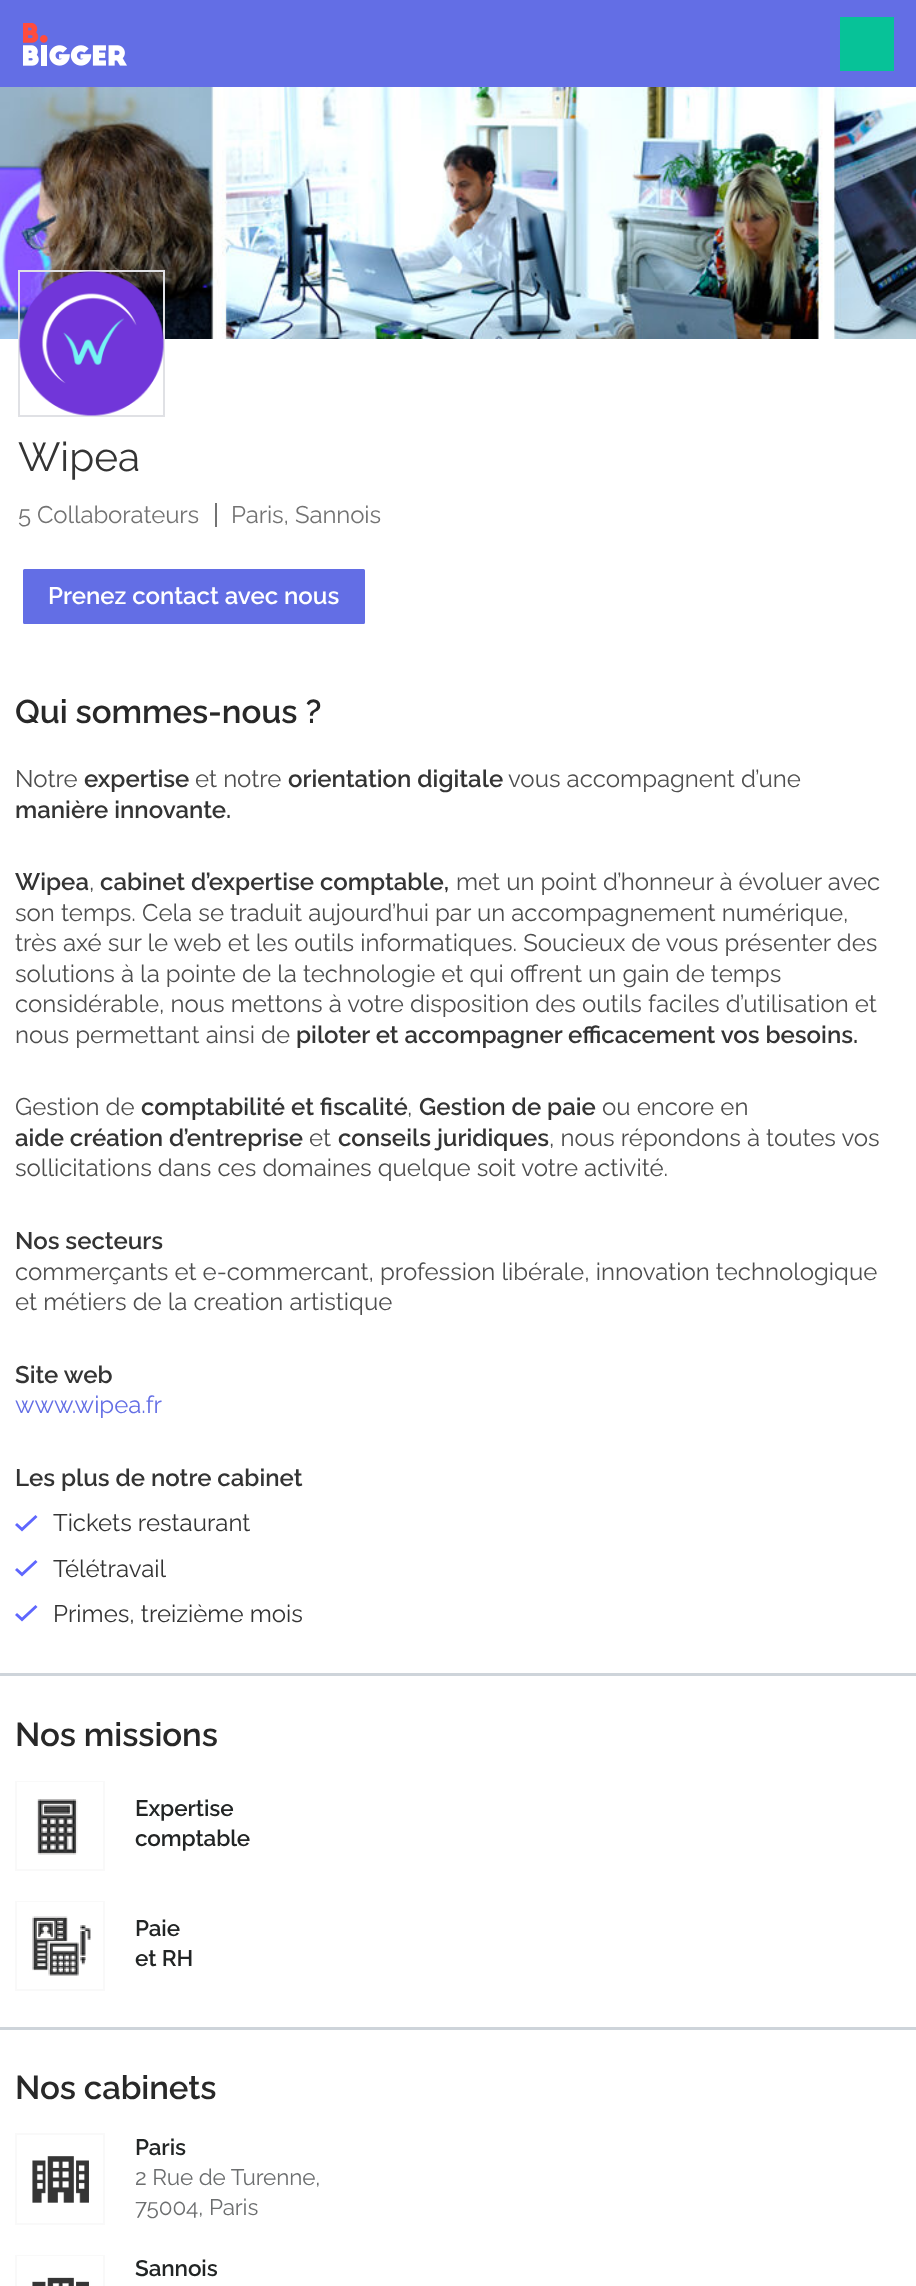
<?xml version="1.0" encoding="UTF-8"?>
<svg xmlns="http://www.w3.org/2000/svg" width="916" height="2286">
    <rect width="100%" height="100%" fill="#FFFFFF"/>
    <rect x="0" y="0" width="916" height="87" fill="#636EE5"/>
    <image x="23" y="23" width="104" height="43" href="img_01.png"/>
    <rect x="840" y="17" width="54" height="54" fill="#07C298"/>
    <image x="0" y="87" width="916" height="252" href="img_02.png"/>
    <rect x="0" y="1673" width="916" height="3" fill="#CED4DA"/>
    <rect x="19" y="271" width="145" height="145" fill="none" stroke="#E0E1E5" stroke-width="2"/>
    <image x="19" y="271" width="145" height="145" href="img_03.png"/>
    <text x="18" y="471" font-family="Raleway" font-size="40.5" fill="#343434">Wipea</text>
    <rect x="215" y="503" width="2" height="24" fill="#737373"/>
    <text x="18" y="523" font-family="Raleway" font-size="24" letter-spacing="-0.1" fill="#737373">5 Collaborateurs</text>
    <text x="231" y="523" font-family="Raleway" font-size="24" letter-spacing="-0.1" fill="#737373">Paris, Sannois</text>
    <rect x="24" y="570" width="340" height="53" rx="0.5" fill="#636EE5" stroke="#636EE5" stroke-width="2"/>
    <text x="48" y="604" font-family="Raleway" font-size="24" font-weight="600" fill="#FFFFFF">Prenez contact avec nous</text>
    <text x="15" y="723" font-family="Raleway" font-size="33" font-weight="600" letter-spacing="-0.1" fill="#282828">Qui sommes-nous ?</text>
    <text x="15" y="787" font-family="Raleway" font-size="24" fill="#4E4E4E">Notre</text>
    <text x="84" y="787" font-family="Raleway" font-size="24" font-weight="600" fill="#343434">expertise</text>
    <text x="195" y="787" font-family="Raleway" font-size="24" fill="#4E4E4E">et notre</text>
    <text x="288" y="787" font-family="Raleway" font-size="24" font-weight="600" fill="#343434">orientation digitale</text>
    <text x="508" y="787" font-family="Raleway" font-size="24" fill="#4E4E4E">vous accompagnent d’une</text>
    <text x="15" y="818" font-family="Raleway" font-size="24" font-weight="600" fill="#343434">manière innovante.</text>
    <text x="15" y="890" font-family="Raleway" font-size="24" font-weight="600" fill="#343434">Wipea</text>
    <text x="89" y="890" font-family="Raleway" font-size="24" fill="#4E4E4E">,</text>
    <text x="100" y="890" font-family="Raleway" font-size="24" font-weight="600" fill="#343434">cabinet d’expertise comptable,</text>
    <text x="456" y="890" font-family="Raleway" font-size="24" fill="#4E4E4E">met un point d’honneur à évoluer avec</text>
    <text font-family="Raleway" font-size="24" fill="#4E4E4E">
        <tspan x="15" y="921">son temps. Cela se traduit aujourd’hui par un accompagnement numérique,</tspan>
        <tspan x="15" y="951">très axé sur le web et les outils informatiques. Soucieux de vous présenter des</tspan>
        <tspan x="15" y="982">solutions à la pointe de la technologie et qui offrent un gain de temps</tspan>
        <tspan x="15" y="1012">considérable, nous mettons à votre disposition des outils faciles d’utilisation et</tspan>
        <tspan x="15" y="1043">nous permettant ainsi de</tspan>
    </text>
    <text x="296" y="1043" font-family="Raleway" font-size="24" font-weight="600" fill="#343434">piloter et accompagner efficacement vos besoins.</text>
    <text x="15" y="1115" font-family="Raleway" font-size="24" fill="#4E4E4E">Gestion de</text>
    <text x="141" y="1115" font-family="Raleway" font-size="24" font-weight="600" fill="#343434">comptabilité et fiscalité</text>
    <text x="407" y="1115" font-family="Raleway" font-size="24" fill="#4E4E4E">,</text>
    <text x="419" y="1115" font-family="Raleway" font-size="24" font-weight="600" fill="#343434">Gestion de paie</text>
    <text x="602" y="1115" font-family="Raleway" font-size="24" fill="#4E4E4E">ou encore en</text>
    <text x="15" y="1146" font-family="Raleway" font-size="24" font-weight="600" fill="#343434">aide création d’entreprise</text>
    <text x="309" y="1146" font-family="Raleway" font-size="24" fill="#4E4E4E">et</text>
    <text x="338" y="1146" font-family="Raleway" font-size="24" font-weight="600" fill="#343434">conseils juridiques</text>
    <text x="549" y="1146" font-family="Raleway" font-size="24" fill="#4E4E4E">, nous répondons à toutes vos</text>
    <text x="15" y="1176" font-family="Raleway" font-size="24" fill="#4E4E4E">sollicitations dans ces domaines quelque soit votre activité.</text>
    <text x="15" y="1249" font-family="Raleway" font-size="24" font-weight="600" fill="#343434">Nos secteurs</text>
    <text font-family="Raleway" font-size="24" fill="#4E4E4E">
        <tspan x="15" y="1280">commerçants et e-commercant, profession libérale, innovation technologique</tspan>
        <tspan x="15" y="1310">et métiers de la creation artistique</tspan>
    </text>
    <text x="15" y="1383" font-family="Raleway" font-size="24" font-weight="600" fill="#343434">Site web</text>
    <text x="15" y="1413" font-family="Raleway" font-size="24" fill="#636EE5">www.wipea.fr</text>
    <text x="15" y="1486" font-family="Raleway" font-size="24" font-weight="600" fill="#343434">Les plus de notre cabinet</text>
    <path d="M 17 1523 L 15 1525 L 22 1531.5 L 37.5 1517 L 35.5 1515 L 22 1527.5 Z" fill="#5F67FE"/>
    <text x="53" y="1531" font-family="Raleway" font-size="24" fill="#343434">Tickets restaurant</text>
    <path d="M 17 1568 L 15 1570 L 22 1576.5 L 37.5 1562 L 35.5 1560 L 22 1572.5 Z" fill="#5F67FE"/>
    <text x="53" y="1577" font-family="Raleway" font-size="24" fill="#343434">Télétravail</text>
    <path d="M 17 1613 L 15 1615 L 22 1621.5 L 37.5 1607 L 35.5 1605 L 22 1617.5 Z" fill="#5F67FE"/>
    <text x="53" y="1622" font-family="Raleway" font-size="24" fill="#343434">Primes, treizième mois</text>
    <text x="15" y="1746" font-family="Raleway" font-size="33" font-weight="600" letter-spacing="-0.1" fill="#282828">Nos missions</text>
    <rect x="16" y="1782" width="88" height="88" fill="none" stroke="#F9F9F9" stroke-width="2"/>
    <image x="17" y="1782" width="86" height="73" href="img_04.png"/>
    <text font-family="Raleway" font-size="22.5" font-weight="600" letter-spacing="-0.1" fill="#222525">
        <tspan x="135" y="1816">Expertise</tspan>
        <tspan x="135" y="1846">comptable</tspan>
    </text>
    <rect x="16" y="1902" width="88" height="88" fill="none" stroke="#F9F9F9" stroke-width="2"/>
    <image x="17" y="1902" width="86" height="74" href="img_05.png"/>
    <text font-family="Raleway" font-size="22.5" font-weight="600" letter-spacing="-0.1" fill="#222525">
        <tspan x="135" y="1936">Paie</tspan>
        <tspan x="135" y="1966">et RH</tspan>
    </text>
    <rect x="0" y="2027" width="916" height="3" fill="#CED4DA"/>
    <text x="15" y="2099" font-family="Raleway" font-size="33" font-weight="600" letter-spacing="-0.1" fill="#282828">Nos cabinets</text>
    <rect x="16" y="2134" width="88" height="90" fill="none" stroke="#F9F9F9" stroke-width="2"/>
    <image x="32" y="2156" width="57" height="47" href="img_06.png"/>
    <text x="135" y="2155" font-family="Raleway" font-size="22.5" font-weight="600" letter-spacing="-0.1" fill="#222525">Paris</text>
    <text font-family="Raleway" font-size="22.5" letter-spacing="-0.1" fill="#6C6E6F">
        <tspan x="135" y="2185">2 Rue de Turenne,</tspan>
        <tspan x="135" y="2215">75004, Paris</tspan>
    </text>
    <rect x="16" y="2256" width="88" height="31" fill="none" stroke="#F9F9F9" stroke-width="2"/>
    <image x="17" y="2256" width="86" height="30" href="img_07.png"/>
    <text x="135" y="2276" font-family="Raleway" font-size="22.5" font-weight="600" letter-spacing="-0.1" fill="#222525">Sannois</text>
</svg>
